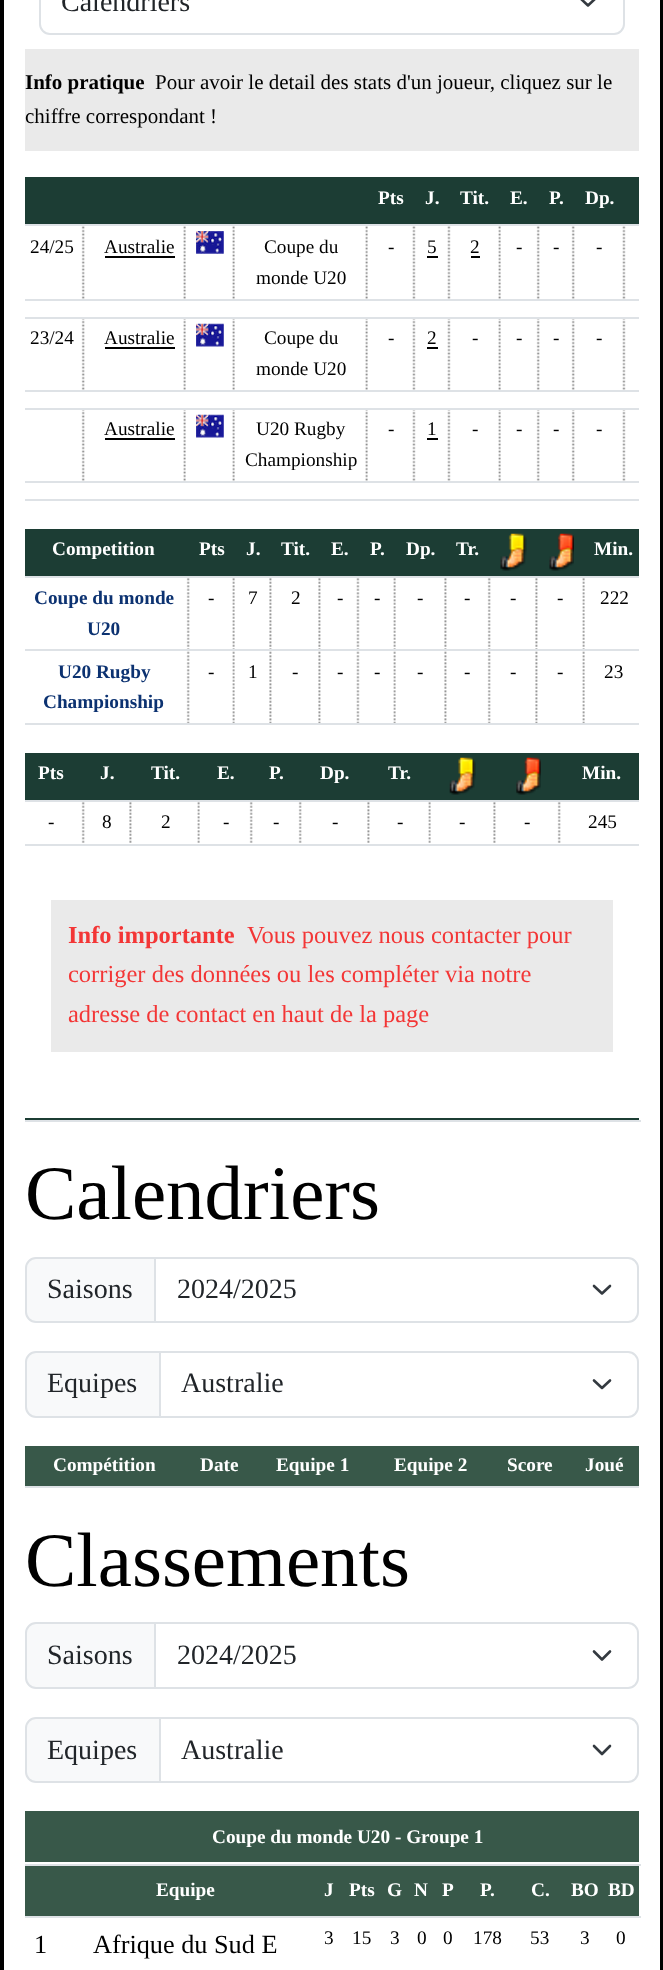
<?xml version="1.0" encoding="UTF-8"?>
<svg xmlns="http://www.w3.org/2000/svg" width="663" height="1970">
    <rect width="100%" height="100%" fill="#FFFFFF"/>
    <rect x="2" y="-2" width="659" height="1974" fill="none" stroke="#000000" stroke-width="4"/>
    <rect x="659" y="0" width="1" height="1970" fill="#FFFFFF"/>
    <path d="M 580 -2 L 588 5.5 L 596 -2" fill="none" stroke="#343A40" stroke-width="2.6" stroke-linecap="round" stroke-linejoin="round"/>
    <rect x="40" y="-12" width="584" height="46" rx="10" fill="none" stroke="#DEE2E6" stroke-width="2"/>
    <text x="61" y="11" font-family="Liberation Serif" font-size="28" fill="#212529">Calendriers</text>
    <rect x="25" y="49" width="614" height="102" fill="#EAEAEA"/>
    <text x="25" y="89" font-family="Liberation Serif" font-size="21" font-weight="700" fill="#000000">Info pratique</text>
    <text x="155" y="89" font-family="Liberation Serif" font-size="21" fill="#000000">Pour avoir le detail des stats d'un joueur, cliquez sur le</text>
    <text x="25" y="123" font-family="Liberation Serif" font-size="21" fill="#000000">chiffre correspondant !</text>
    <rect x="25" y="177" width="614" height="47" fill="#1C3D34"/>
    <text x="378" y="204" font-family="Liberation Serif" font-size="19.25" font-weight="700" fill="#FFFFFF">Pts</text>
    <text x="425" y="204" font-family="Liberation Serif" font-size="19.25" font-weight="700" fill="#FFFFFF">J.</text>
    <text x="460" y="204" font-family="Liberation Serif" font-size="19.25" font-weight="700" fill="#FFFFFF">Tit.</text>
    <text x="510" y="204" font-family="Liberation Serif" font-size="19.25" font-weight="700" fill="#FFFFFF">E.</text>
    <text x="549" y="204" font-family="Liberation Serif" font-size="19.25" font-weight="700" fill="#FFFFFF">P.</text>
    <text x="585" y="204" font-family="Liberation Serif" font-size="19.25" font-weight="700" fill="#FFFFFF">Dp.</text>
    <rect x="25" y="224" width="614" height="2" fill="#DEE2E6"/>
    <text x="30" y="253" font-family="Liberation Serif" font-size="19.25" fill="#000000">24/25</text>
    <image x="81" y="226" width="4" height="73" href="img_01.png"/>
    <text x="104" y="253" font-family="Liberation Serif" font-size="19.25" fill="#000000">Australie</text>
    <rect x="105" y="256" width="70" height="2" fill="#000000"/>
    <image x="183" y="226" width="3" height="73" href="img_02.png"/>
    <image x="196" y="231" width="28" height="23" href="img_03.png"/>
    <image x="232" y="226" width="3" height="73" href="img_02.png"/>
    <text x="264" y="253" font-family="Liberation Serif" font-size="19.25" fill="#000000">Coupe du</text>
    <text x="256" y="284" font-family="Liberation Serif" font-size="19.25" fill="#000000">monde U20</text>
    <image x="365" y="226" width="3" height="73" href="img_02.png"/>
    <text x="388" y="253" font-family="Liberation Serif" font-size="19.25" fill="#000000">-</text>
    <image x="412" y="226" width="4" height="73" href="img_04.png"/>
    <text x="427" y="253" font-family="Liberation Serif" font-size="19.25" fill="#000000">5</text>
    <rect x="427" y="256" width="11" height="2" fill="#000000"/>
    <image x="447" y="226" width="4" height="73" href="img_04.png"/>
    <text x="470" y="253" font-family="Liberation Serif" font-size="19.25" fill="#000000">2</text>
    <rect x="471" y="256" width="9" height="2" fill="#000000"/>
    <image x="498" y="226" width="3" height="73" href="img_02.png"/>
    <text x="516" y="253" font-family="Liberation Serif" font-size="19.25" fill="#000000">-</text>
    <image x="536" y="226" width="4" height="73" href="img_01.png"/>
    <text x="553" y="253" font-family="Liberation Serif" font-size="19.25" fill="#000000">-</text>
    <image x="571" y="226" width="4" height="73" href="img_01.png"/>
    <text x="596" y="253" font-family="Liberation Serif" font-size="19.25" fill="#000000">-</text>
    <image x="622" y="226" width="4" height="73" href="img_04.png"/>
    <rect x="25" y="299" width="614" height="2" fill="#DEE2E6"/>
    <rect x="25" y="317" width="614" height="2" fill="#DEE2E6"/>
    <text x="30" y="344" font-family="Liberation Serif" font-size="19.25" fill="#000000">23/24</text>
    <image x="81" y="319" width="4" height="71" href="img_05.png"/>
    <text x="104" y="344" font-family="Liberation Serif" font-size="19.25" fill="#000000">Australie</text>
    <rect x="105" y="347" width="70" height="2" fill="#000000"/>
    <image x="183" y="319" width="3" height="71" href="img_06.png"/>
    <image x="196" y="323" width="28" height="24" href="img_07.png"/>
    <image x="232" y="319" width="3" height="71" href="img_06.png"/>
    <text x="264" y="344" font-family="Liberation Serif" font-size="19.25" fill="#000000">Coupe du</text>
    <text x="256" y="375" font-family="Liberation Serif" font-size="19.25" fill="#000000">monde U20</text>
    <image x="365" y="319" width="3" height="71" href="img_06.png"/>
    <text x="388" y="344" font-family="Liberation Serif" font-size="19.25" fill="#000000">-</text>
    <image x="412" y="319" width="4" height="71" href="img_08.png"/>
    <text x="427" y="344" font-family="Liberation Serif" font-size="19.25" fill="#000000">2</text>
    <rect x="427" y="347" width="11" height="2" fill="#000000"/>
    <image x="447" y="319" width="4" height="71" href="img_08.png"/>
    <text x="472" y="344" font-family="Liberation Serif" font-size="19.25" fill="#000000">-</text>
    <image x="498" y="319" width="3" height="71" href="img_06.png"/>
    <text x="516" y="344" font-family="Liberation Serif" font-size="19.25" fill="#000000">-</text>
    <image x="536" y="319" width="4" height="71" href="img_05.png"/>
    <text x="553" y="344" font-family="Liberation Serif" font-size="19.25" fill="#000000">-</text>
    <image x="571" y="319" width="4" height="71" href="img_05.png"/>
    <text x="596" y="344" font-family="Liberation Serif" font-size="19.25" fill="#000000">-</text>
    <image x="622" y="319" width="4" height="71" href="img_08.png"/>
    <rect x="25" y="390" width="614" height="2" fill="#DEE2E6"/>
    <rect x="25" y="408" width="614" height="2" fill="#DEE2E6"/>
    <image x="81" y="410" width="4" height="71" href="img_05.png"/>
    <text x="104" y="435" font-family="Liberation Serif" font-size="19.25" fill="#000000">Australie</text>
    <rect x="105" y="438" width="70" height="2" fill="#000000"/>
    <image x="183" y="410" width="3" height="71" href="img_06.png"/>
    <image x="196" y="414" width="28" height="24" href="img_07.png"/>
    <image x="232" y="410" width="3" height="71" href="img_06.png"/>
    <text x="256" y="435" font-family="Liberation Serif" font-size="19.25" fill="#000000">U20 Rugby</text>
    <text x="245" y="466" font-family="Liberation Serif" font-size="19.25" fill="#000000">Championship</text>
    <image x="365" y="410" width="3" height="71" href="img_06.png"/>
    <text x="388" y="435" font-family="Liberation Serif" font-size="19.25" fill="#000000">-</text>
    <image x="412" y="410" width="4" height="71" href="img_08.png"/>
    <text x="427" y="435" font-family="Liberation Serif" font-size="19.25" fill="#000000">1</text>
    <rect x="427" y="438" width="11" height="2" fill="#000000"/>
    <image x="447" y="410" width="4" height="71" href="img_08.png"/>
    <text x="472" y="435" font-family="Liberation Serif" font-size="19.25" fill="#000000">-</text>
    <image x="498" y="410" width="3" height="71" href="img_06.png"/>
    <text x="516" y="435" font-family="Liberation Serif" font-size="19.25" fill="#000000">-</text>
    <image x="536" y="410" width="4" height="71" href="img_05.png"/>
    <text x="553" y="435" font-family="Liberation Serif" font-size="19.25" fill="#000000">-</text>
    <image x="571" y="410" width="4" height="71" href="img_05.png"/>
    <text x="596" y="435" font-family="Liberation Serif" font-size="19.25" fill="#000000">-</text>
    <image x="622" y="410" width="4" height="71" href="img_08.png"/>
    <rect x="25" y="481" width="614" height="2" fill="#DEE2E6"/>
    <rect x="25" y="499" width="614" height="2" fill="#DEE2E6"/>
    <rect x="25" y="529" width="614" height="47" fill="#1C3D34"/>
    <text x="52" y="555" font-family="Liberation Serif" font-size="19.25" font-weight="700" fill="#FFFFFF">Competition</text>
    <text x="199" y="555" font-family="Liberation Serif" font-size="19.25" font-weight="700" fill="#FFFFFF">Pts</text>
    <text x="246" y="555" font-family="Liberation Serif" font-size="19.25" font-weight="700" fill="#FFFFFF">J.</text>
    <text x="281" y="555" font-family="Liberation Serif" font-size="19.25" font-weight="700" fill="#FFFFFF">Tit.</text>
    <text x="331" y="555" font-family="Liberation Serif" font-size="19.25" font-weight="700" fill="#FFFFFF">E.</text>
    <text x="370" y="555" font-family="Liberation Serif" font-size="19.25" font-weight="700" fill="#FFFFFF">P.</text>
    <text x="406" y="555" font-family="Liberation Serif" font-size="19.25" font-weight="700" fill="#FFFFFF">Dp.</text>
    <text x="456" y="555" font-family="Liberation Serif" font-size="19.25" font-weight="700" fill="#FFFFFF">Tr.</text>
    <image x="500" y="533" width="27" height="38" href="img_09.png"/>
    <image x="549" y="533" width="25" height="38" href="img_10.png"/>
    <rect x="25" y="576" width="614" height="2" fill="#DEE2E6"/>
    <text x="594" y="555" font-family="Liberation Serif" font-size="19.25" font-weight="700" fill="#FFFFFF">Min.</text>
    <text x="34" y="604" font-family="Liberation Serif" font-size="19.25" font-weight="700" fill="#0C3271">Coupe du monde</text>
    <text x="87" y="635" font-family="Liberation Serif" font-size="19.25" font-weight="700" fill="#0C3271">U20</text>
    <image x="186" y="578" width="4" height="71" href="img_11.png"/>
    <text x="208" y="604" font-family="Liberation Serif" font-size="19.25" fill="#000000">-</text>
    <image x="232" y="578" width="3" height="71" href="img_12.png"/>
    <text x="248" y="604" font-family="Liberation Serif" font-size="19.25" fill="#000000">7</text>
    <image x="269" y="578" width="3" height="71" href="img_13.png"/>
    <text x="291" y="604" font-family="Liberation Serif" font-size="19.25" fill="#000000">2</text>
    <image x="318" y="578" width="3" height="71" href="img_13.png"/>
    <text x="337" y="604" font-family="Liberation Serif" font-size="19.25" fill="#000000">-</text>
    <image x="356" y="578" width="4" height="71" href="img_14.png"/>
    <text x="374" y="604" font-family="Liberation Serif" font-size="19.25" fill="#000000">-</text>
    <image x="393" y="578" width="3" height="71" href="img_12.png"/>
    <text x="417" y="604" font-family="Liberation Serif" font-size="19.25" fill="#000000">-</text>
    <image x="444" y="578" width="3" height="71" href="img_13.png"/>
    <text x="464" y="604" font-family="Liberation Serif" font-size="19.25" fill="#000000">-</text>
    <image x="487" y="578" width="4" height="71" href="img_11.png"/>
    <text x="510" y="604" font-family="Liberation Serif" font-size="19.25" fill="#000000">-</text>
    <image x="535" y="578" width="3" height="71" href="img_13.png"/>
    <text x="557" y="604" font-family="Liberation Serif" font-size="19.25" fill="#000000">-</text>
    <image x="582" y="578" width="3" height="71" href="img_12.png"/>
    <rect x="25" y="649" width="614" height="2" fill="#DEE2E6"/>
    <text x="600" y="604" font-family="Liberation Serif" font-size="19.25" fill="#000000">222</text>
    <text x="58" y="678" font-family="Liberation Serif" font-size="19.25" font-weight="700" fill="#0C3271">U20 Rugby</text>
    <text x="43" y="708" font-family="Liberation Serif" font-size="19.25" font-weight="700" fill="#0C3271">Championship</text>
    <image x="186" y="651" width="4" height="72" href="img_15.png"/>
    <text x="208" y="678" font-family="Liberation Serif" font-size="19.25" fill="#000000">-</text>
    <image x="232" y="651" width="3" height="72" href="img_16.png"/>
    <text x="248" y="678" font-family="Liberation Serif" font-size="19.25" fill="#000000">1</text>
    <image x="269" y="651" width="3" height="72" href="img_17.png"/>
    <text x="292" y="678" font-family="Liberation Serif" font-size="19.25" fill="#000000">-</text>
    <image x="318" y="651" width="3" height="72" href="img_17.png"/>
    <text x="337" y="678" font-family="Liberation Serif" font-size="19.25" fill="#000000">-</text>
    <image x="356" y="651" width="4" height="72" href="img_18.png"/>
    <text x="374" y="678" font-family="Liberation Serif" font-size="19.25" fill="#000000">-</text>
    <image x="393" y="651" width="3" height="72" href="img_16.png"/>
    <text x="417" y="678" font-family="Liberation Serif" font-size="19.25" fill="#000000">-</text>
    <image x="444" y="651" width="3" height="72" href="img_17.png"/>
    <text x="464" y="678" font-family="Liberation Serif" font-size="19.25" fill="#000000">-</text>
    <image x="487" y="651" width="4" height="72" href="img_15.png"/>
    <text x="510" y="678" font-family="Liberation Serif" font-size="19.25" fill="#000000">-</text>
    <image x="535" y="651" width="3" height="72" href="img_17.png"/>
    <text x="557" y="678" font-family="Liberation Serif" font-size="19.25" fill="#000000">-</text>
    <image x="582" y="651" width="3" height="72" href="img_16.png"/>
    <rect x="25" y="723" width="614" height="2" fill="#DEE2E6"/>
    <text x="604" y="678" font-family="Liberation Serif" font-size="19.25" fill="#000000">23</text>
    <rect x="25" y="753" width="614" height="47" fill="#1C3D34"/>
    <text x="38" y="779" font-family="Liberation Serif" font-size="19.25" font-weight="700" fill="#FFFFFF">Pts</text>
    <text x="100" y="779" font-family="Liberation Serif" font-size="19.25" font-weight="700" fill="#FFFFFF">J.</text>
    <text x="151" y="779" font-family="Liberation Serif" font-size="19.25" font-weight="700" fill="#FFFFFF">Tit.</text>
    <text x="217" y="779" font-family="Liberation Serif" font-size="19.25" font-weight="700" fill="#FFFFFF">E.</text>
    <text x="269" y="779" font-family="Liberation Serif" font-size="19.25" font-weight="700" fill="#FFFFFF">P.</text>
    <text x="320" y="779" font-family="Liberation Serif" font-size="19.25" font-weight="700" fill="#FFFFFF">Dp.</text>
    <text x="388" y="779" font-family="Liberation Serif" font-size="19.25" font-weight="700" fill="#FFFFFF">Tr.</text>
    <image x="449" y="757" width="27" height="38" href="img_19.png"/>
    <image x="516" y="757" width="25" height="38" href="img_20.png"/>
    <rect x="25" y="800" width="614" height="2" fill="#DEE2E6"/>
    <text x="582" y="779" font-family="Liberation Serif" font-size="19.25" font-weight="700" fill="#FFFFFF">Min.</text>
    <text x="48" y="828" font-family="Liberation Serif" font-size="19.25" fill="#000000">-</text>
    <image x="81" y="802" width="4" height="41" href="img_21.png"/>
    <text x="102" y="828" font-family="Liberation Serif" font-size="19.25" fill="#000000">8</text>
    <image x="129" y="802" width="3" height="41" href="img_22.png"/>
    <text x="161" y="828" font-family="Liberation Serif" font-size="19.25" fill="#000000">2</text>
    <image x="197" y="802" width="3" height="41" href="img_23.png"/>
    <text x="223" y="828" font-family="Liberation Serif" font-size="19.25" fill="#000000">-</text>
    <image x="249" y="802" width="4" height="41" href="img_21.png"/>
    <text x="273" y="828" font-family="Liberation Serif" font-size="19.25" fill="#000000">-</text>
    <image x="298" y="802" width="4" height="41" href="img_21.png"/>
    <text x="332" y="828" font-family="Liberation Serif" font-size="19.25" fill="#000000">-</text>
    <image x="367" y="802" width="3" height="41" href="img_22.png"/>
    <text x="397" y="828" font-family="Liberation Serif" font-size="19.25" fill="#000000">-</text>
    <image x="428" y="802" width="3" height="41" href="img_23.png"/>
    <text x="459" y="828" font-family="Liberation Serif" font-size="19.25" fill="#000000">-</text>
    <image x="493" y="802" width="3" height="41" href="img_22.png"/>
    <text x="524" y="828" font-family="Liberation Serif" font-size="19.25" fill="#000000">-</text>
    <image x="557" y="802" width="4" height="41" href="img_21.png"/>
    <rect x="25" y="844" width="614" height="2" fill="#DEE2E6"/>
    <text x="588" y="828" font-family="Liberation Serif" font-size="19.25" fill="#000000">245</text>
    <rect x="51" y="900" width="562" height="152" fill="#EAEAEA"/>
    <text x="68" y="943" font-family="Liberation Serif" font-size="24.5" font-weight="700" fill="#F33636">Info importante</text>
    <text x="247" y="943" font-family="Liberation Serif" font-size="24.5" fill="#F33636">Vous pouvez nous contacter pour</text>
    <text font-family="Liberation Serif" font-size="24.5" fill="#F33636">
        <tspan x="68" y="982">corriger des données ou les compléter via notre</tspan>
        <tspan x="68" y="1022">adresse de contact en haut de la page</tspan>
    </text>
    <rect x="25" y="1118" width="614" height="2" fill="#1C3D34"/>
    <rect x="25" y="1120" width="616" height="2" fill="#DEE2E6"/>
    <text x="25" y="1219" font-family="Liberation Serif" font-size="77" fill="#000000">Calendriers</text>
    <path d="M 36 1258 H 155 V 1322 H 36 C 30.5 1322 26 1317.5 26 1312 V 1268 C 26 1262.5 30.5 1258 36 1258 Z" fill="#F8F9FA" stroke="#DEE2E6" stroke-width="2"/>
    <text x="47" y="1298" font-family="Liberation Serif" font-size="28" fill="#212529">Saisons</text>
    <path d="M 154 1257 H 628 C 634 1257 639 1262 639 1268 V 1312 C 639 1318 634 1323 628 1323 H 154 Z" fill="#FFFFFF"/>
    <path d="M 594 1286 L 602 1293.5 L 610 1286" fill="none" stroke="#343A40" stroke-width="2.6" stroke-linecap="round" stroke-linejoin="round"/>
    <path d="M 155 1258 H 628 C 633.5 1258 638 1262.5 638 1268 V 1312 C 638 1317.5 633.5 1322 628 1322 H 155 Z" fill="none" stroke="#DEE2E6" stroke-width="2"/>
    <text x="177" y="1298" font-family="Liberation Serif" font-size="28" fill="#212529">2024/2025</text>
    <path d="M 36 1352 H 160 V 1417 H 36 C 30.5 1417 26 1412.5 26 1407 V 1362 C 26 1356.5 30.5 1352 36 1352 Z" fill="#F8F9FA" stroke="#DEE2E6" stroke-width="2"/>
    <text x="47" y="1392" font-family="Liberation Serif" font-size="28" fill="#212529">Equipes</text>
    <path d="M 159 1351 H 628 C 634 1351 639 1356 639 1362 V 1407 C 639 1413 634 1418 628 1418 H 159 Z" fill="#FFFFFF"/>
    <path d="M 594 1380.5 L 602 1388 L 610 1380.5" fill="none" stroke="#343A40" stroke-width="2.6" stroke-linecap="round" stroke-linejoin="round"/>
    <path d="M 160 1352 H 628 C 633.5 1352 638 1356.5 638 1362 V 1407 C 638 1412.5 633.5 1417 628 1417 H 160 Z" fill="none" stroke="#DEE2E6" stroke-width="2"/>
    <text x="181" y="1392" font-family="Liberation Serif" font-size="28" fill="#212529">Australie</text>
    <rect x="25" y="1446" width="614" height="40" fill="#385849"/>
    <text x="53" y="1471" font-family="Liberation Serif" font-size="19.25" font-weight="700" fill="#FFFFFF">Compétition</text>
    <text x="200" y="1471" font-family="Liberation Serif" font-size="19.25" font-weight="700" fill="#FFFFFF">Date</text>
    <text x="276" y="1471" font-family="Liberation Serif" font-size="19.25" font-weight="700" fill="#FFFFFF">Equipe 1</text>
    <text x="394" y="1471" font-family="Liberation Serif" font-size="19.25" font-weight="700" fill="#FFFFFF">Equipe 2</text>
    <text x="507" y="1471" font-family="Liberation Serif" font-size="19.25" font-weight="700" fill="#FFFFFF">Score</text>
    <rect x="25" y="1486" width="614" height="2" fill="#DEE2E6"/>
    <text x="585" y="1471" font-family="Liberation Serif" font-size="19.25" font-weight="700" fill="#FFFFFF">Joué</text>
    <text x="25" y="1586" font-family="Liberation Serif" font-size="77" fill="#000000">Classements</text>
    <path d="M 36 1623 H 155 V 1688 H 36 C 30.5 1688 26 1683.5 26 1678 V 1633 C 26 1627.5 30.5 1623 36 1623 Z" fill="#F8F9FA" stroke="#DEE2E6" stroke-width="2"/>
    <text x="47" y="1664" font-family="Liberation Serif" font-size="28" fill="#212529">Saisons</text>
    <path d="M 154 1622 H 628 C 634 1622 639 1627 639 1633 V 1678 C 639 1684 634 1689 628 1689 H 154 Z" fill="#FFFFFF"/>
    <path d="M 594 1651.5 L 602 1659.5 L 610 1651.5" fill="none" stroke="#343A40" stroke-width="2.6" stroke-linecap="round" stroke-linejoin="round"/>
    <path d="M 155 1623 H 628 C 633.5 1623 638 1627.5 638 1633 V 1678 C 638 1683.5 633.5 1688 628 1688 H 155 Z" fill="none" stroke="#DEE2E6" stroke-width="2"/>
    <text x="177" y="1664" font-family="Liberation Serif" font-size="28" fill="#212529">2024/2025</text>
    <path d="M 36 1718 H 160 V 1782 H 36 C 30.5 1782 26 1777.5 26 1772 V 1728 C 26 1722.5 30.5 1718 36 1718 Z" fill="#F8F9FA" stroke="#DEE2E6" stroke-width="2"/>
    <text x="47" y="1759" font-family="Liberation Serif" font-size="28" fill="#212529">Equipes</text>
    <path d="M 159 1717 H 628 C 634 1717 639 1722 639 1728 V 1772 C 639 1778 634 1783 628 1783 H 159 Z" fill="#FFFFFF"/>
    <path d="M 594 1746 L 602 1754 L 610 1746" fill="none" stroke="#343A40" stroke-width="2.6" stroke-linecap="round" stroke-linejoin="round"/>
    <path d="M 160 1718 H 628 C 633.5 1718 638 1722.5 638 1728 V 1772 C 638 1777.5 633.5 1782 628 1782 H 160 Z" fill="none" stroke="#DEE2E6" stroke-width="2"/>
    <text x="181" y="1759" font-family="Liberation Serif" font-size="28" fill="#212529">Australie</text>
    <rect x="25" y="1811" width="614" height="51" fill="#385849"/>
    <rect x="25" y="1864" width="616" height="2" fill="#DEE2E6"/>
    <text x="212" y="1843" font-family="Liberation Serif" font-size="19.25" font-weight="700" fill="#FFFFFF">Coupe du monde U20 - Groupe 1</text>
    <rect x="25" y="1866" width="614" height="50" fill="#385849"/>
    <text x="156" y="1896" font-family="Liberation Serif" font-size="19.25" font-weight="700" fill="#FFFFFF">Equipe</text>
    <text x="324" y="1896" font-family="Liberation Serif" font-size="19.25" font-weight="700" fill="#FFFFFF">J</text>
    <text x="349" y="1896" font-family="Liberation Serif" font-size="19.25" font-weight="700" fill="#FFFFFF">Pts</text>
    <text x="387" y="1896" font-family="Liberation Serif" font-size="19.25" font-weight="700" fill="#FFFFFF">G</text>
    <text x="414" y="1896" font-family="Liberation Serif" font-size="19.25" font-weight="700" fill="#FFFFFF">N</text>
    <text x="442" y="1896" font-family="Liberation Serif" font-size="19.25" font-weight="700" fill="#FFFFFF">P</text>
    <text x="480" y="1896" font-family="Liberation Serif" font-size="19.25" font-weight="700" fill="#FFFFFF">P.</text>
    <text x="531" y="1896" font-family="Liberation Serif" font-size="19.25" font-weight="700" fill="#FFFFFF">C.</text>
    <text x="571" y="1896" font-family="Liberation Serif" font-size="19.25" font-weight="700" fill="#FFFFFF">BO</text>
    <rect x="25" y="1916" width="616" height="2" fill="#DEE2E6"/>
    <text x="608" y="1896" font-family="Liberation Serif" font-size="19.25" font-weight="700" fill="#FFFFFF">BD</text>
    <text x="34" y="1953" font-family="Liberation Serif" font-size="26.25" fill="#000000">1</text>
    <text x="93" y="1953" font-family="Liberation Serif" font-size="26.25" fill="#000000">Afrique du Sud E</text>
    <text x="324" y="1944" font-family="Liberation Serif" font-size="19.25" fill="#000000">3</text>
    <text x="352" y="1944" font-family="Liberation Serif" font-size="19.25" fill="#000000">15</text>
    <text x="390" y="1944" font-family="Liberation Serif" font-size="19.25" fill="#000000">3</text>
    <text x="417" y="1944" font-family="Liberation Serif" font-size="19.25" fill="#000000">0</text>
    <text x="443" y="1944" font-family="Liberation Serif" font-size="19.25" fill="#000000">0</text>
    <text x="473" y="1944" font-family="Liberation Serif" font-size="19.25" fill="#000000">178</text>
    <text x="530" y="1944" font-family="Liberation Serif" font-size="19.25" fill="#000000">53</text>
    <text x="580" y="1944" font-family="Liberation Serif" font-size="19.25" fill="#000000">3</text>
    <text x="616" y="1944" font-family="Liberation Serif" font-size="19.25" fill="#000000">0</text>
</svg>
